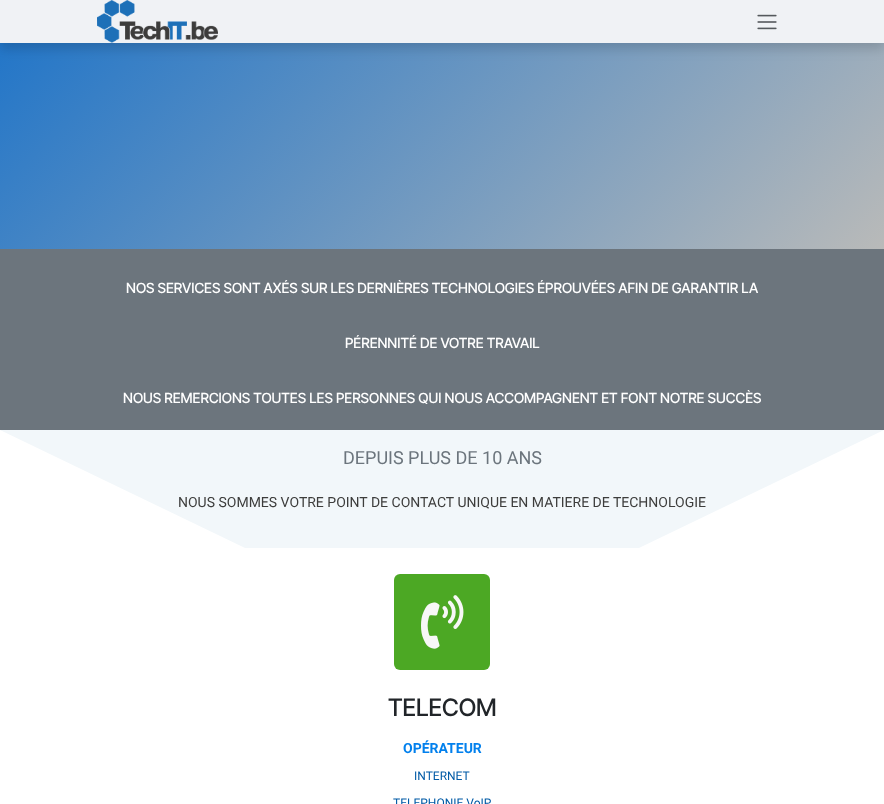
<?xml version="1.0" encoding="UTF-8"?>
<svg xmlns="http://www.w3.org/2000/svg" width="884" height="804">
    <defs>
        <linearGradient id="g1" gradientUnits="userSpaceOnUse" x1="169" y1="-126" x2="715" y2="419"><stop offset="0" stop-color="#2376C8"/><stop offset="1" stop-color="#B9BAB9"/></linearGradient>
        <filter id="blur1" x="-50%" y="-200%" width="200%" height="500%"><feGaussianBlur stdDeviation="6"/></filter>
        <clipPath id="clip1"><rect x="0" y="430" width="884" height="118"/></clipPath>
    </defs>
    <rect width="100%" height="100%" fill="#FFFFFF"/>
    <rect x="0" y="43" width="884" height="206" fill="url(#g1)"/>
    <rect x="0" y="6" width="884" height="43" fill="#000000" fill-opacity="0.15" filter="url(#blur1)"/>
    <rect x="0" y="0" width="884" height="43" fill="#F0F2F5"/>
    <image x="97" y="0" width="121" height="43" href="img_01.png"/>
    <image x="757" y="14" width="20" height="16" href="img_02.png"/>
    <rect x="0" y="249" width="884" height="181" fill="#6C757D"/>
    <text x="126" y="293" font-family="Inter Tight" font-size="14" font-weight="500" fill="#FFFFFF">NOS SERVICES SONT AXÉS SUR LES DERNIÈRES TECHNOLOGIES ÉPROUVÉES AFIN DE GARANTIR LA</text>
    <text x="345" y="348" font-family="Inter Tight" font-size="14" font-weight="500" fill="#FFFFFF">PÉRENNITÉ DE VOTRE TRAVAIL</text>
    <text x="123" y="403" font-family="Inter Tight" font-size="14" font-weight="500" fill="#FFFFFF">NOUS REMERCIONS TOUTES LES PERSONNES QUI NOUS ACCOMPAGNENT ET FONT NOTRE SUCCÈS</text>
    <g clip-path="url(#clip1)">
        <path d="M 0 430 L 405 625 C 428 634 453 635 479 625 L 884 430 Z" fill="#F2F7FA"/>
    </g>
    <text x="343" y="464" font-family="Roboto" font-size="18" fill="#6C757D">DEPUIS PLUS DE 10 ANS</text>
    <text x="178" y="507" font-family="Roboto" font-size="14" fill="#3D3D3C">NOUS SOMMES VOTRE POINT DE CONTACT UNIQUE EN MATIERE DE TECHNOLOGIE</text>
    <rect x="394" y="574" width="96" height="96" rx="6" fill="#4CA824"/>
    <image x="421" y="595" width="43" height="54" href="img_03.png"/>
    <text x="388" y="716" font-family="Inter Tight" font-size="24" font-weight="500" fill="#212529">TELECOM</text>
    <text x="403" y="753" font-family="Roboto" font-size="14" font-weight="700" fill="#0280ED">OPÉRATEUR</text>
    <text x="414" y="780" font-family="Roboto" font-size="12" fill="#015AA6">INTERNET</text>
    <text x="393" y="807" font-family="Roboto" font-size="12" fill="#015AA6">TELEPHONIE VoIP</text>
</svg>
